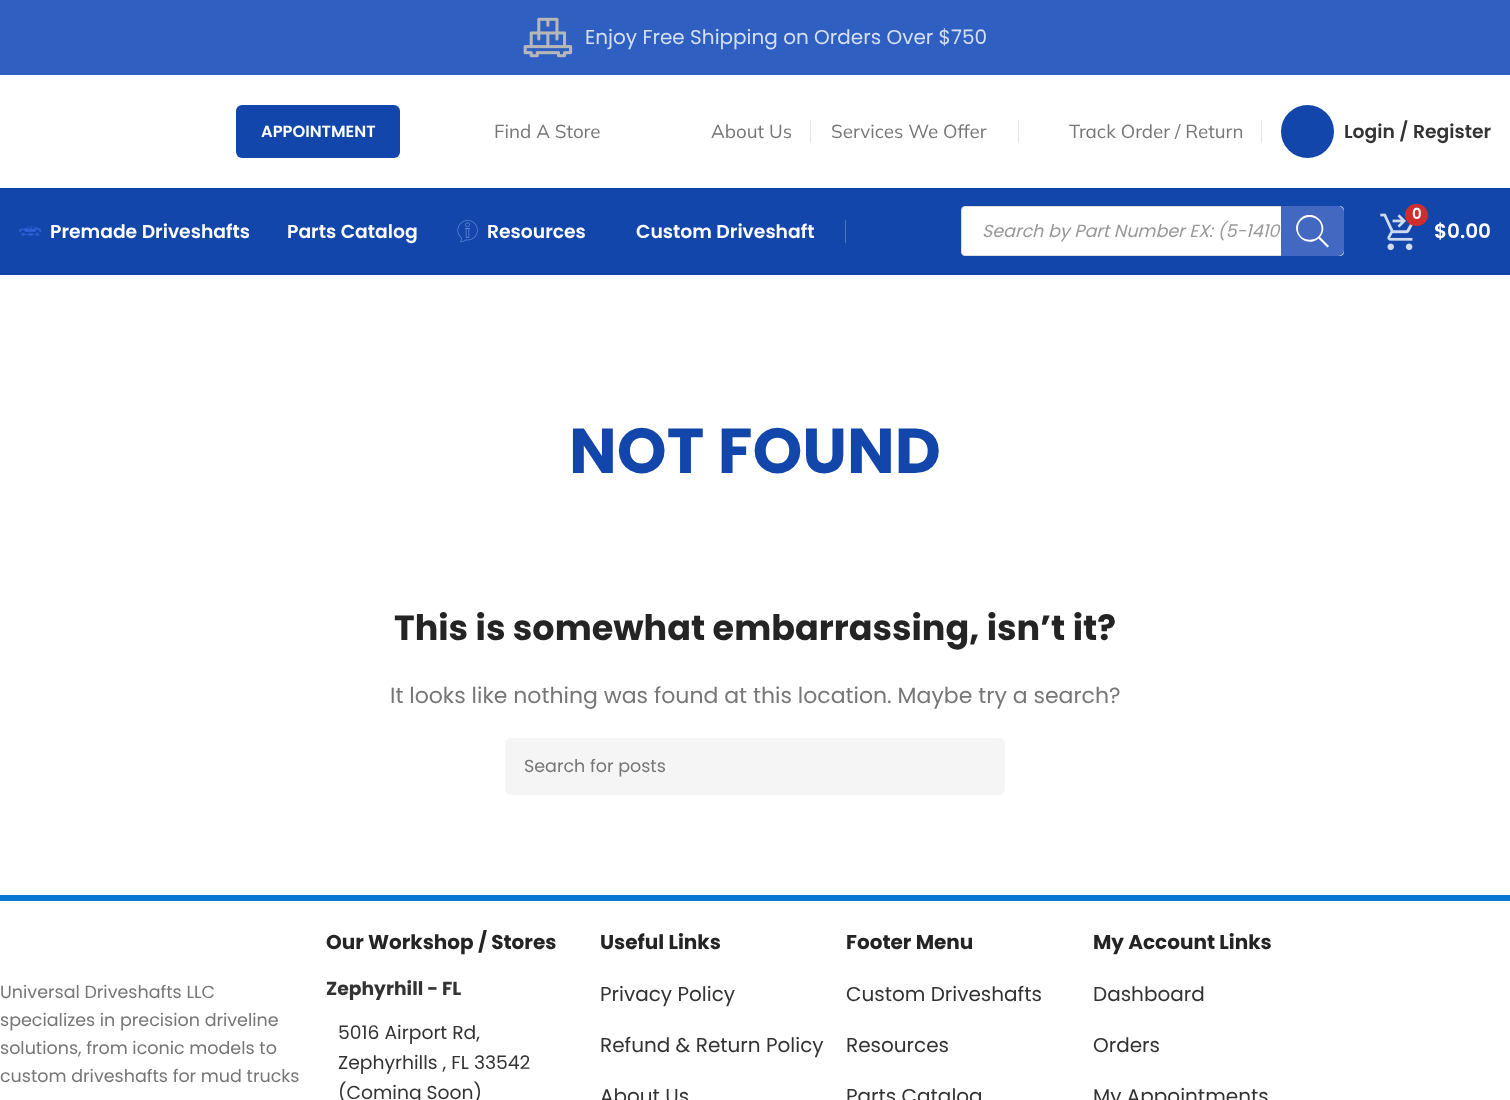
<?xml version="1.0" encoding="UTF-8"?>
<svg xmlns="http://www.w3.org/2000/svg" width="1510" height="1100">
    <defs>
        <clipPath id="clip1"><rect x="1296" y="215" width="33" height="33"/></clipPath>
    </defs>
    <rect width="100%" height="100%" fill="#FFFFFF"/>
    <rect x="0" y="0" width="1510" height="75" fill="#2F60C1"/>
    <image x="523" y="17" width="50" height="41" href="img_01.png"/>
    <text x="585" y="44" font-family="Poppins" font-size="20" fill="#D5DFF3">Enjoy Free Shipping on Orders Over $750</text>
    <rect x="236" y="105" width="164" height="53" rx="6" fill="#1246AB"/>
    <text x="261" y="137" font-family="Poppins" font-size="16.25" font-weight="600" fill="#FFFFFF">APPOINTMENT</text>
    <text x="494" y="138" font-family="Mulish" font-size="18.75" fill="#767676">Find A Store</text>
    <text x="711" y="138" font-family="Mulish" font-size="18.75" fill="#767676">About Us</text>
    <rect x="810" y="120" width="1" height="23" fill="#E4E4E4"/>
    <text x="831" y="138" font-family="Mulish" font-size="18.75" fill="#767676">Services We Offer</text>
    <rect x="1018" y="120" width="1" height="23" fill="#E4E4E4"/>
    <text x="1069" y="138" font-family="Mulish" font-size="18.75" fill="#767676">Track Order / Return</text>
    <rect x="1261" y="120" width="1" height="23" fill="#E4E4E4"/>
    <circle cx="1307.5" cy="131.5" r="26.5" fill="#1246AB"/>
    <text x="1344" y="138" font-family="Poppins" font-size="18.75" font-weight="600" fill="#333333">Login / Register</text>
    <rect x="0" y="188" width="1510" height="87" fill="#1246AB"/>
    <image x="19" y="226" width="22" height="10" href="img_02.png"/>
    <text x="50" y="238" font-family="Poppins" font-size="18.75" font-weight="600" fill="#FFFFFF">Premade Driveshafts</text>
    <text x="287" y="238" font-family="Poppins" font-size="18.75" font-weight="600" fill="#FFFFFF">Parts Catalog</text>
    <image x="457" y="220" width="21" height="23" href="img_03.png"/>
    <text x="487" y="238" font-family="Poppins" font-size="18.75" font-weight="600" fill="#FFFFFF">Resources</text>
    <text x="636" y="238" font-family="Poppins" font-size="18.75" font-weight="600" fill="#FFFFFF">Custom Driveshaft</text>
    <rect x="845" y="220" width="1" height="23" fill="#4D74C0"/>
    <rect x="961.5" y="206.5" width="382" height="49" rx="3.5" fill="#FFFFFF" stroke="#DDDDDD"/>
    <text x="982" y="237" font-family="Poppins" font-size="17.5" font-style="italic" fill="#999999">Search by Part Number EX: (5-1410</text>
    <path d="M 1281 206 H 1338 C 1341.5 206 1344 208.5 1344 212 V 250 C 1344 253.5 1341.5 256 1338 256 H 1281 Z" fill="#4268C1"/>
    <g clip-path="url(#clip1)">
        <path d="M 1329 246 L 1320 237 C 1331 224.5 1312.5 206.5 1300 219 C 1288 231 1306 249.5 1318.5 238.5 L 1327.5 247.5 Z M 1298 228.5 C 1298 213 1321.5 213 1321.5 228.5 C 1321.5 243.5 1298 243.5 1298 228.5 Z" fill="#FFFFFF"/>
    </g>
    <image x="1380" y="213" width="33" height="38" href="img_04.png"/>
    <rect x="1405" y="204" width="23" height="22" rx="11" fill="#CF2E2E"/>
    <text x="1412" y="219" font-family="Poppins" font-size="15" font-weight="600" fill="#FFFFFF">0</text>
    <text x="1434" y="238" font-family="Poppins" font-size="20" font-weight="600" fill="#FFFFFF">$0.00</text>
    <text x="569" y="473" font-family="Poppins" font-size="63.5" font-weight="700" fill="#1246AB">NOT FOUND</text>
    <text x="394" y="640" font-family="Poppins" font-size="35" font-weight="700" fill="#242424">This is somewhat embarrassing, isn’t it?</text>
    <text x="390" y="703" font-family="Poppins" font-size="22" fill="#767676">It looks like nothing was found at this location. Maybe try a search?</text>
    <rect x="505" y="738" width="500" height="57" rx="6" fill="#F5F5F5"/>
    <text x="524" y="772" font-family="Poppins" font-size="17.5" fill="#767676">Search for posts</text>
    <rect x="0" y="895" width="1510" height="6" fill="#0B77D4"/>
    <text font-family="Poppins" font-size="17.5" fill="#767676">
        <tspan x="0" y="998">Universal Driveshafts LLC</tspan>
        <tspan x="0" y="1026">specializes in precision driveline</tspan>
        <tspan x="0" y="1054">solutions, from iconic models to</tspan>
        <tspan x="0" y="1082">custom driveshafts for mud trucks</tspan>
    </text>
    <text x="326" y="949" font-family="Poppins" font-size="20" font-weight="700" fill="#242424">Our Workshop / Stores</text>
    <text x="326" y="995" font-family="Poppins" font-size="18.75" font-weight="700" fill="#333333">Zephyrhill - FL</text>
    <text font-family="Poppins" font-size="18.75" fill="#333333">
        <tspan x="338" y="1039">5016 Airport Rd,</tspan>
        <tspan x="338" y="1069">Zephyrhills , FL 33542</tspan>
        <tspan x="338" y="1099">(Coming Soon)</tspan>
    </text>
    <text x="600" y="949" font-family="Poppins" font-size="20" font-weight="700" fill="#242424">Useful Links</text>
    <text x="600" y="1001" font-family="Poppins" font-size="20" fill="#333333">Privacy Policy</text>
    <text x="600" y="1052" font-family="Poppins" font-size="20" fill="#333333">Refund &amp; Return Policy</text>
    <text x="600" y="1103" font-family="Poppins" font-size="20" fill="#333333">About Us</text>
    <text x="846" y="949" font-family="Poppins" font-size="20" font-weight="700" fill="#242424">Footer Menu</text>
    <text x="846" y="1001" font-family="Poppins" font-size="20" fill="#333333">Custom Driveshafts</text>
    <text x="846" y="1052" font-family="Poppins" font-size="20" fill="#333333">Resources</text>
    <text x="846" y="1103" font-family="Poppins" font-size="20" fill="#333333">Parts Catalog</text>
    <text x="1093" y="949" font-family="Poppins" font-size="20" font-weight="700" fill="#242424">My Account Links</text>
    <text x="1093" y="1001" font-family="Poppins" font-size="20" fill="#333333">Dashboard</text>
    <text x="1093" y="1052" font-family="Poppins" font-size="20" fill="#333333">Orders</text>
    <text x="1093" y="1103" font-family="Poppins" font-size="20" fill="#333333">My Appointments</text>
</svg>
